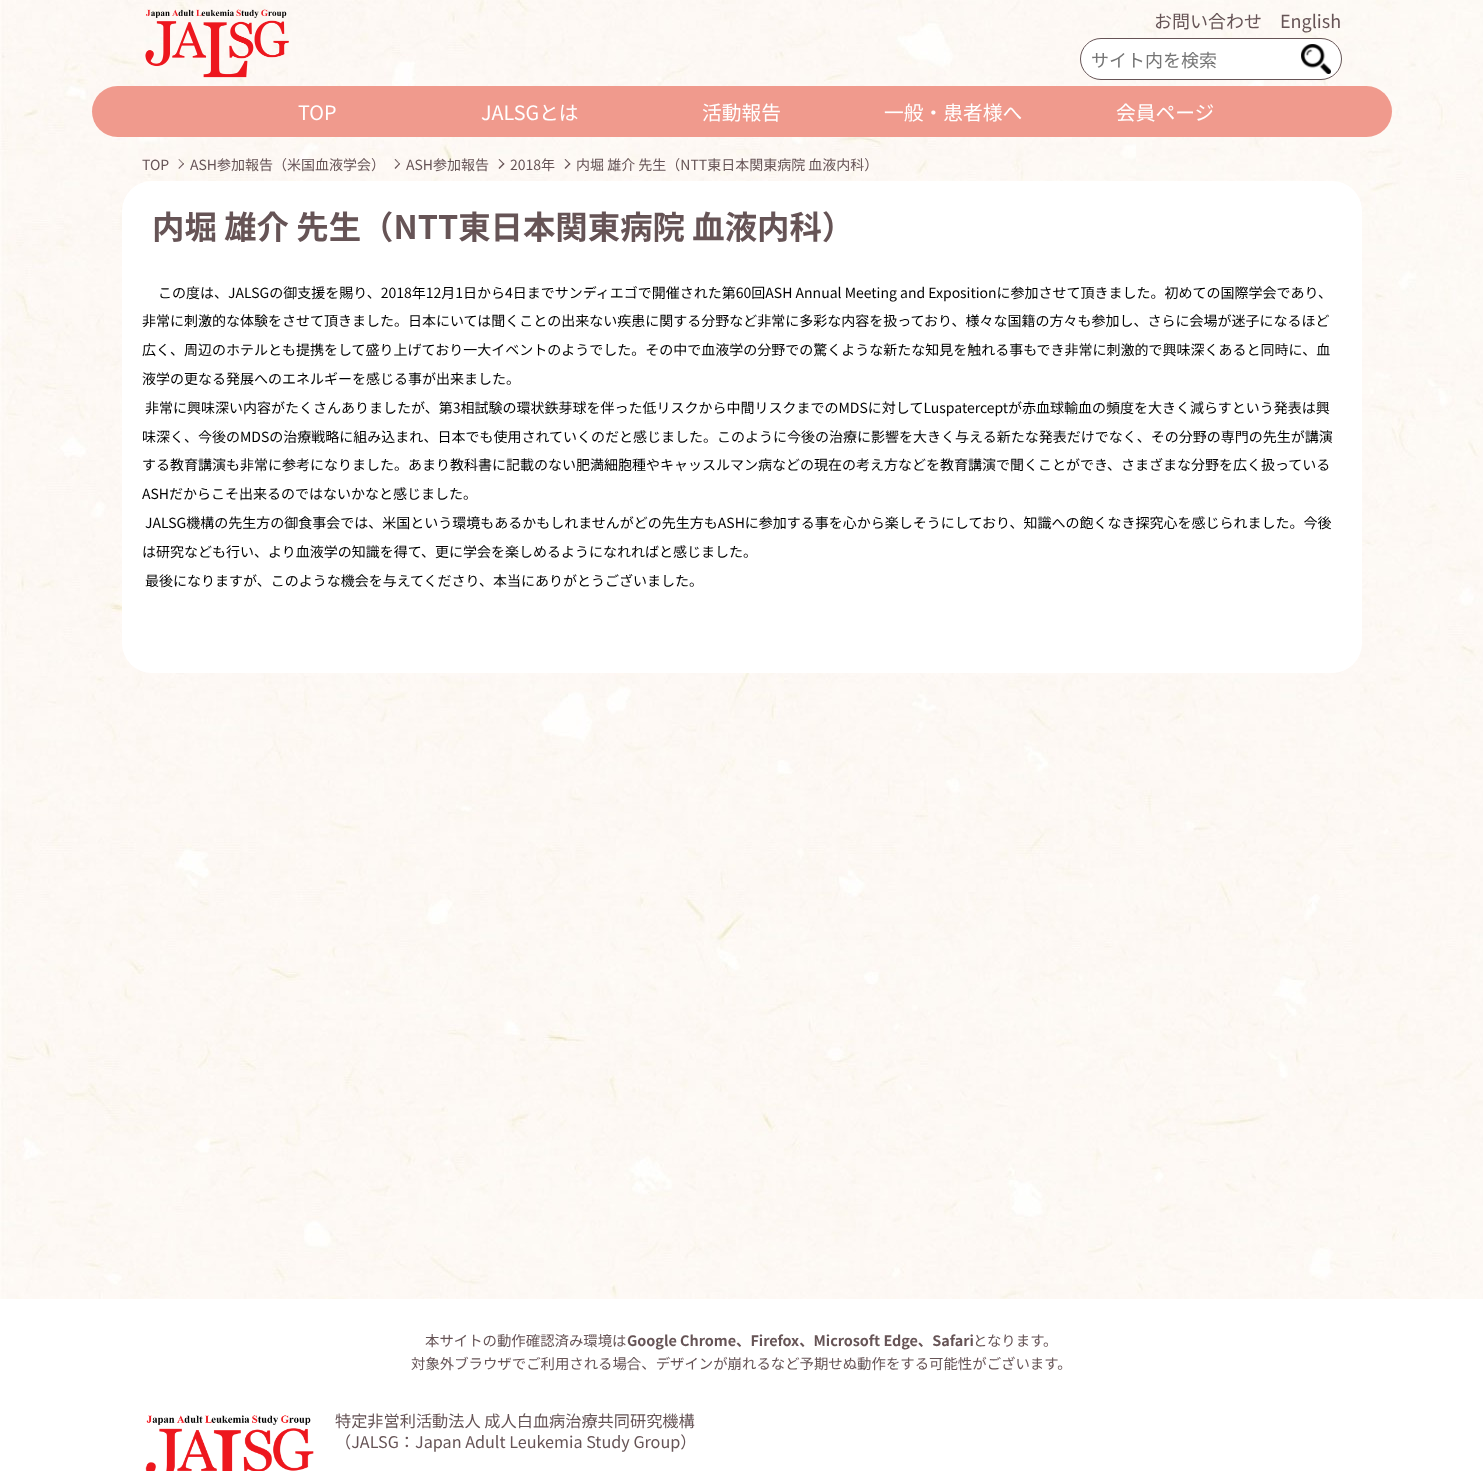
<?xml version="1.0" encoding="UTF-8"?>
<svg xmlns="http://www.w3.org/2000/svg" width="1483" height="1471">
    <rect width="100%" height="100%" fill="#FFFFFF"/>
    <image x="0" y="0" width="1483" height="1299" href="img_01.png"/>
    <image x="145" y="9" width="144" height="69" href="img_02.png"/>
    <text x="1154" y="28" font-family="Noto Sans JP" font-size="18" fill="#665456">お問い合わせ</text>
    <text x="1280" y="28" font-family="Noto Sans JP" font-size="18" fill="#665456">English</text>
    <rect x="1080.5" y="38.5" width="261" height="41" rx="20.5" fill="#FFFFFF" stroke="#665456"/>
    <text x="1091" y="67" font-family="Noto Sans JP" font-size="18" fill="#757575">サイト内を検索</text>
    <image x="1301" y="44" width="30" height="30" href="img_03.png"/>
    <rect x="92" y="86" width="1300" height="51" rx="25.5" fill="#F09A8D"/>
    <text x="298" y="120" font-family="Noto Sans JP" font-size="19.75" fill="#FFFFFF">TOP</text>
    <text x="481" y="120" font-family="Noto Sans JP" font-size="19.75" fill="#FFFFFF">JALSGとは</text>
    <text x="702" y="120" font-family="Noto Sans JP" font-size="19.75" fill="#FFFFFF">活動報告</text>
    <text x="884" y="120" font-family="Noto Sans JP" font-size="19.75" fill="#FFFFFF">一般・患者様へ</text>
    <text x="1116" y="120" font-family="Noto Sans JP" font-size="19.75" fill="#FFFFFF">会員ページ</text>
    <text x="142" y="170" font-family="Noto Sans JP" font-size="14" fill="#665456">TOP</text>
    <path d="M 179 159 L 184 164 L 183.5 164.5 L 178.5 159.5 Z" fill="#665456"/>
    <path d="M 183.5 163 L 184 164 L 179 169 L 178.5 168 Z" fill="#665456"/>
    <text x="190" y="170" font-family="Noto Sans JP" font-size="14" fill="#665456">ASH参加報告（米国血液学会）</text>
    <path d="M 395.5 159 L 400 164 L 399.5 164.5 L 394.5 159.5 Z" fill="#665456"/>
    <path d="M 399.5 163 L 400 164 L 395.5 169 L 394.5 168 Z" fill="#665456"/>
    <text x="406" y="170" font-family="Noto Sans JP" font-size="14" fill="#665456">ASH参加報告</text>
    <path d="M 499.5 159 L 504.5 164 L 503.5 164.5 L 498.5 159.5 Z" fill="#665456"/>
    <path d="M 503.5 163 L 504.5 164 L 499.5 169 L 498.5 168 Z" fill="#665456"/>
    <text x="510" y="170" font-family="Noto Sans JP" font-size="14" fill="#665456">2018年</text>
    <path d="M 565.5 159 L 570.5 164 L 569.5 164.5 L 564.5 159.5 Z" fill="#665456"/>
    <path d="M 569.5 163 L 570.5 164 L 565.5 169 L 564.5 168 Z" fill="#665456"/>
    <text x="576" y="170" font-family="Noto Sans JP" font-size="14" fill="#665456">内堀 雄介 先生（NTT東日本関東病院 血液内科）</text>
    <rect x="122" y="181" width="1240" height="492" rx="30" fill="#FFFFFF"/>
    <text x="152" y="239" font-family="Noto Sans JP" font-size="32.4" font-weight="700" fill="#665456">内堀 雄介 先生（NTT東日本関東病院 血液内科）</text>
    <text x="158" y="298" font-family="Noto Sans JP" font-size="14" fill="#000000">この度は、JALSGの御支援を賜り、2018年12月1日から4日までサンディエゴで開催された第60回ASH Annual Meeting and Expositionに参加させて頂きました。初めての国際学会であり、</text>
    <text x="142" y="326" font-family="Noto Sans JP" font-size="14" fill="#000000">非常に刺激的な体験をさせて頂きました。日本にいては聞くことの出来ない疾患に関する分野など非常に多彩な内容を扱っており、様々な国籍の方々も参加し、さらに会場が迷子になるほど</text>
    <text x="142" y="355" font-family="Noto Sans JP" font-size="14" fill="#000000">広く、周辺のホテルとも提携をして盛り上げており一大イベントのようでした。その中で血液学の分野での驚くような新たな知見を触れる事もでき非常に刺激的で興味深くあると同時に、血</text>
    <text x="142" y="384" font-family="Noto Sans JP" font-size="14" fill="#000000">液学の更なる発展へのエネルギーを感じる事が出来ました。</text>
    <text x="145" y="413" font-family="Noto Sans JP" font-size="14" fill="#000000">非常に興味深い内容がたくさんありましたが、第3相試験の環状鉄芽球を伴った低リスクから中間リスクまでのMDSに対してLuspaterceptが赤血球輸血の頻度を大きく減らすという発表は興</text>
    <text x="142" y="442" font-family="Noto Sans JP" font-size="14" fill="#000000">味深く、今後のMDSの治療戦略に組み込まれ、日本でも使用されていくのだと感じました。このように今後の治療に影響を大きく与える新たな発表だけでなく、その分野の専門の先生が講演</text>
    <text x="142" y="470" font-family="Noto Sans JP" font-size="14" fill="#000000">する教育講演も非常に参考になりました。あまり教科書に記載のない肥満細胞種やキャッスルマン病などの現在の考え方などを教育講演で聞くことができ、さまざまな分野を広く扱っている</text>
    <text x="142" y="499" font-family="Noto Sans JP" font-size="14" fill="#000000">ASHだからこそ出来るのではないかなと感じました。</text>
    <text x="145" y="528" font-family="Noto Sans JP" font-size="14" fill="#000000">JALSG機構の先生方の御食事会では、米国という環境もあるかもしれませんがどの先生方もASHに参加する事を心から楽しそうにしており、知識への飽くなき探究心を感じられました。今後</text>
    <text x="142" y="557" font-family="Noto Sans JP" font-size="14" fill="#000000">は研究なども行い、より血液学の知識を得て、更に学会を楽しめるようになれればと感じました。</text>
    <text x="145" y="586" font-family="Noto Sans JP" font-size="14" fill="#000000">最後になりますが、このような機会を与えてくださり、本当にありがとうございました。</text>
    <text x="425" y="1346" font-family="Noto Sans JP" font-size="14.4" fill="#665456">本サイトの動作確認済み環境は</text>
    <text x="627" y="1346" font-family="Noto Sans JP" font-size="14.4" font-weight="700" fill="#665456">Google Chrome、Firefox、Microsoft Edge、Safari</text>
    <text x="973" y="1346" font-family="Noto Sans JP" font-size="14.4" fill="#665456">となります。</text>
    <text x="411" y="1369" font-family="Noto Sans JP" font-size="14.4" fill="#665456">対象外ブラウザでご利用される場合、デザインが崩れるなど予期せぬ動作をする可能性がございます。</text>
    <image x="145" y="1415" width="169" height="56" href="img_04.png"/>
    <text font-family="Noto Sans JP" font-size="16.2" fill="#665456">
        <tspan x="335" y="1427">特定非営利活動法人 成人白血病治療共同研究機構</tspan>
        <tspan x="335" y="1448">（JALSG：Japan Adult Leukemia Study Group）</tspan>
    </text>
</svg>
